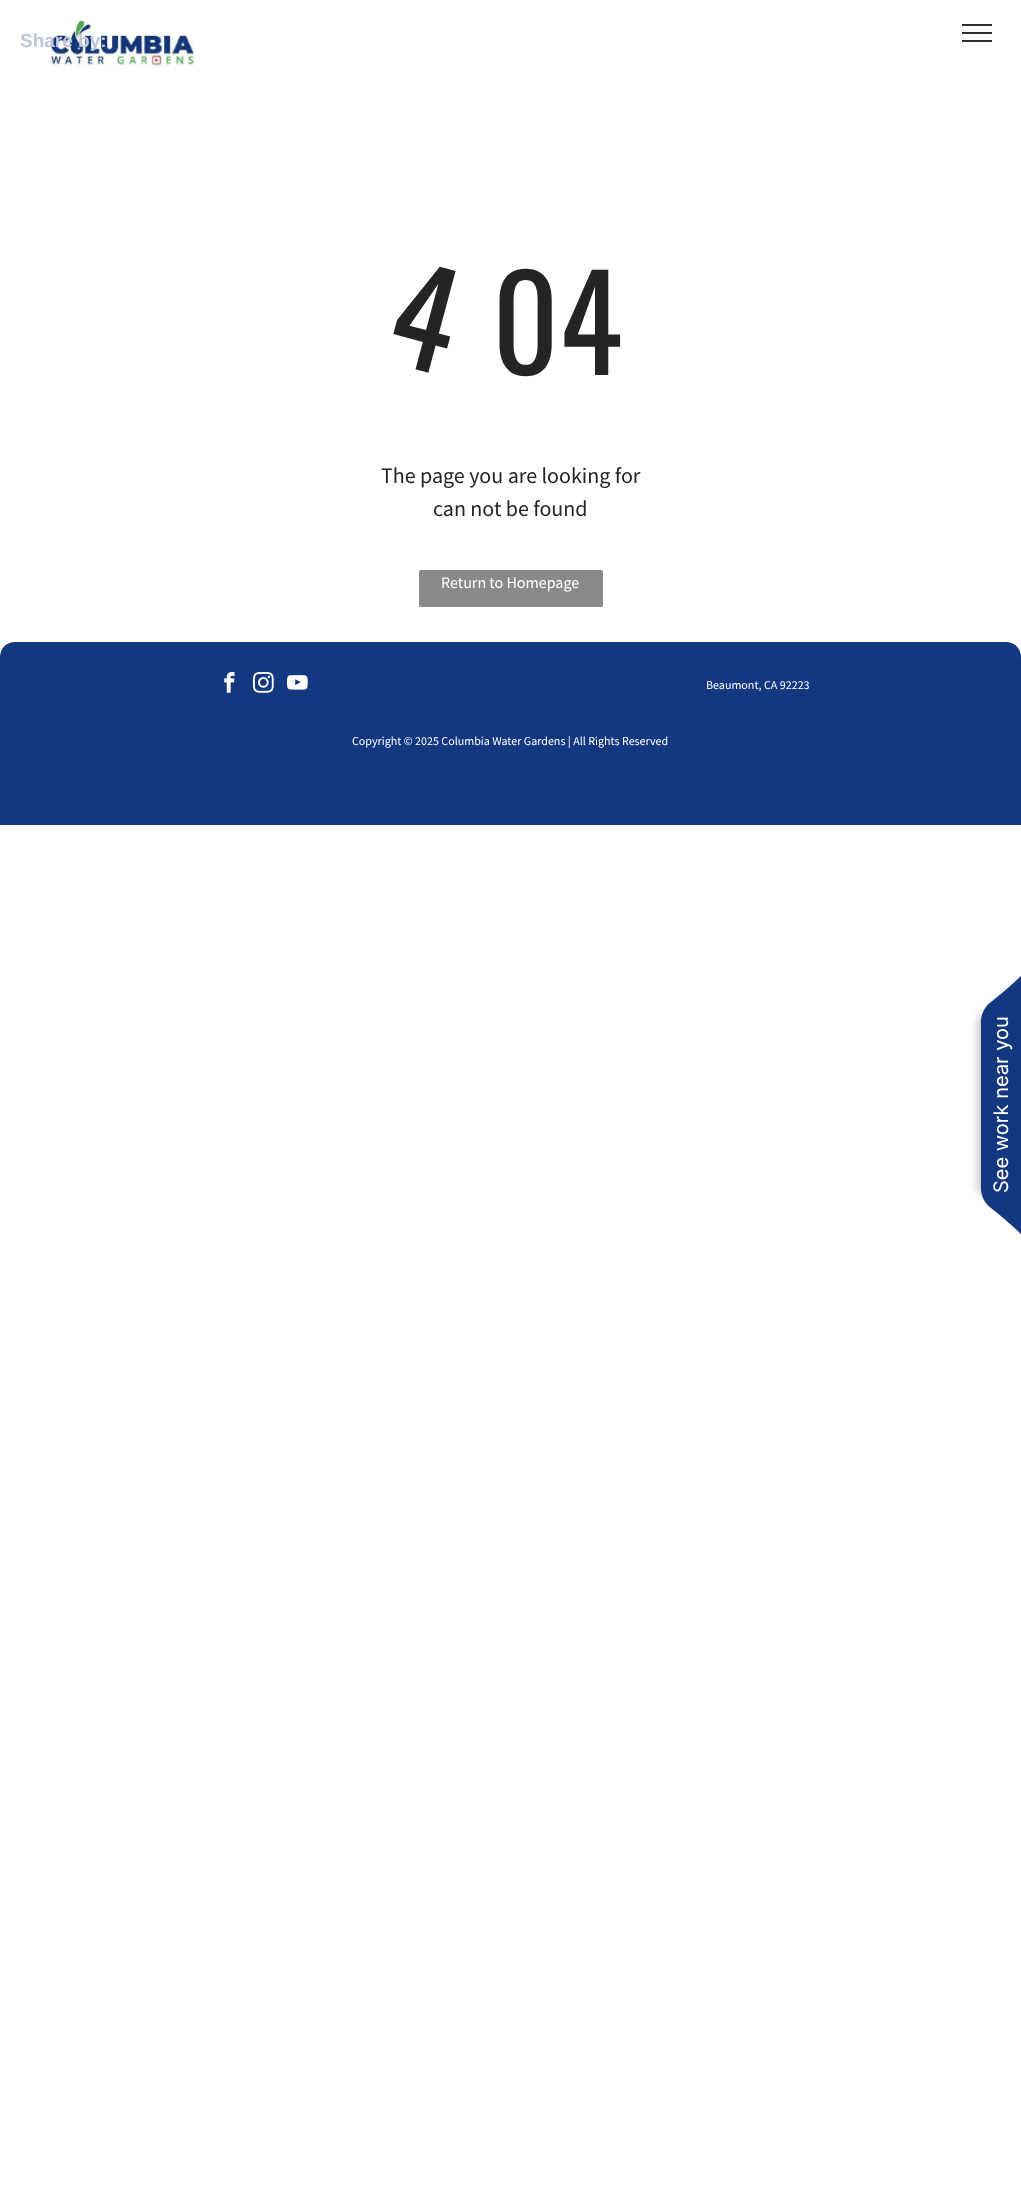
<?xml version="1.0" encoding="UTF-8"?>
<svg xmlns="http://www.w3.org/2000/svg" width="1021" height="2210">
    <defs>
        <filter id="blur1" x="-50%" y="-200%" width="200%" height="500%"><feGaussianBlur stdDeviation="4"/></filter>
    </defs>
    <rect width="100%" height="100%" fill="#FFFFFF"/>
    <image x="50" y="18" width="146" height="51" href="img_01.png"/>
    <text x="20" y="47" font-family="Liberation Sans" font-size="19" font-weight="700" fill="#BEC8D8">Share by:</text>
    <rect x="962" y="24" width="30" height="2" fill="#2D2E32"/>
    <rect x="962" y="32" width="30" height="2" fill="#2D2E32"/>
    <rect x="962" y="40" width="30" height="2" fill="#2D2E32"/>
    <text x="381" y="360" transform="rotate(15 381 360)" font-family="Oswald" font-size="130" fill="#242424">4</text>
    <text x="492" y="375" font-family="Oswald" font-size="130" fill="#242424">04</text>
    <text x="381" y="483" font-family="Source Sans Pro" font-size="22" fill="#242424">The page you are looking for</text>
    <text x="433" y="516" font-family="Source Sans Pro" font-size="22" fill="#242424">can not be found</text>
    <rect x="419" y="570" width="184" height="37" rx="2" fill="#898989"/>
    <text x="441" y="588" font-family="Source Sans Pro" font-size="16" fill="#FFFFFF">Return to Homepage</text>
    <path d="M 15 642 H 1006 C 1014.5 642 1021 648.5 1021 657 V 825 H 0 V 657 C 0 648.5 6.5 642 15 642 Z" fill="#13387F"/>
    <image x="224" y="672" width="11" height="21" href="img_02.png"/>
    <image x="253" y="672" width="21" height="21" href="img_03.png"/>
    <image x="287" y="675" width="21" height="15" href="img_04.png"/>
    <text x="706" y="689" font-family="Source Sans Pro" font-size="12" fill="#FFFFFF">Beaumont, CA 92223</text>
    <text x="352" y="745" font-family="Source Sans Pro" font-size="12" fill="#FFFFFF">Copyright © 2025 Columbia Water Gardens | All Rights Reserved</text>
    <rect x="978" y="1015" width="40" height="180" rx="8" fill="#070505" fill-opacity="0.25" filter="url(#blur1)"/>
    <path d="M 989 1015 H 1021 V 1195 H 989 C 984.5 1195 981 1191.5 981 1187 V 1023 C 981 1018.5 984.5 1015 989 1015 Z" fill="#13387F"/>
    <path d="M 981 1025 H 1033 C 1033 1025 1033 941 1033 957 C 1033 968 1006 990 991 1002 C 985 1006 981 1014 981 1021 Z" fill="#13387F"/>
    <path d="M 981 1185 H 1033 C 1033 1185 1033 1268 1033 1253 C 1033 1242 1006 1220 991 1208 C 985 1204 981 1196 981 1188 Z" fill="#13387F"/>
    <text x="1008" y="1193" transform="rotate(-90 1008 1193)" font-family="Inter" font-size="20" fill="#FFFFFF">See work near you</text>
</svg>
